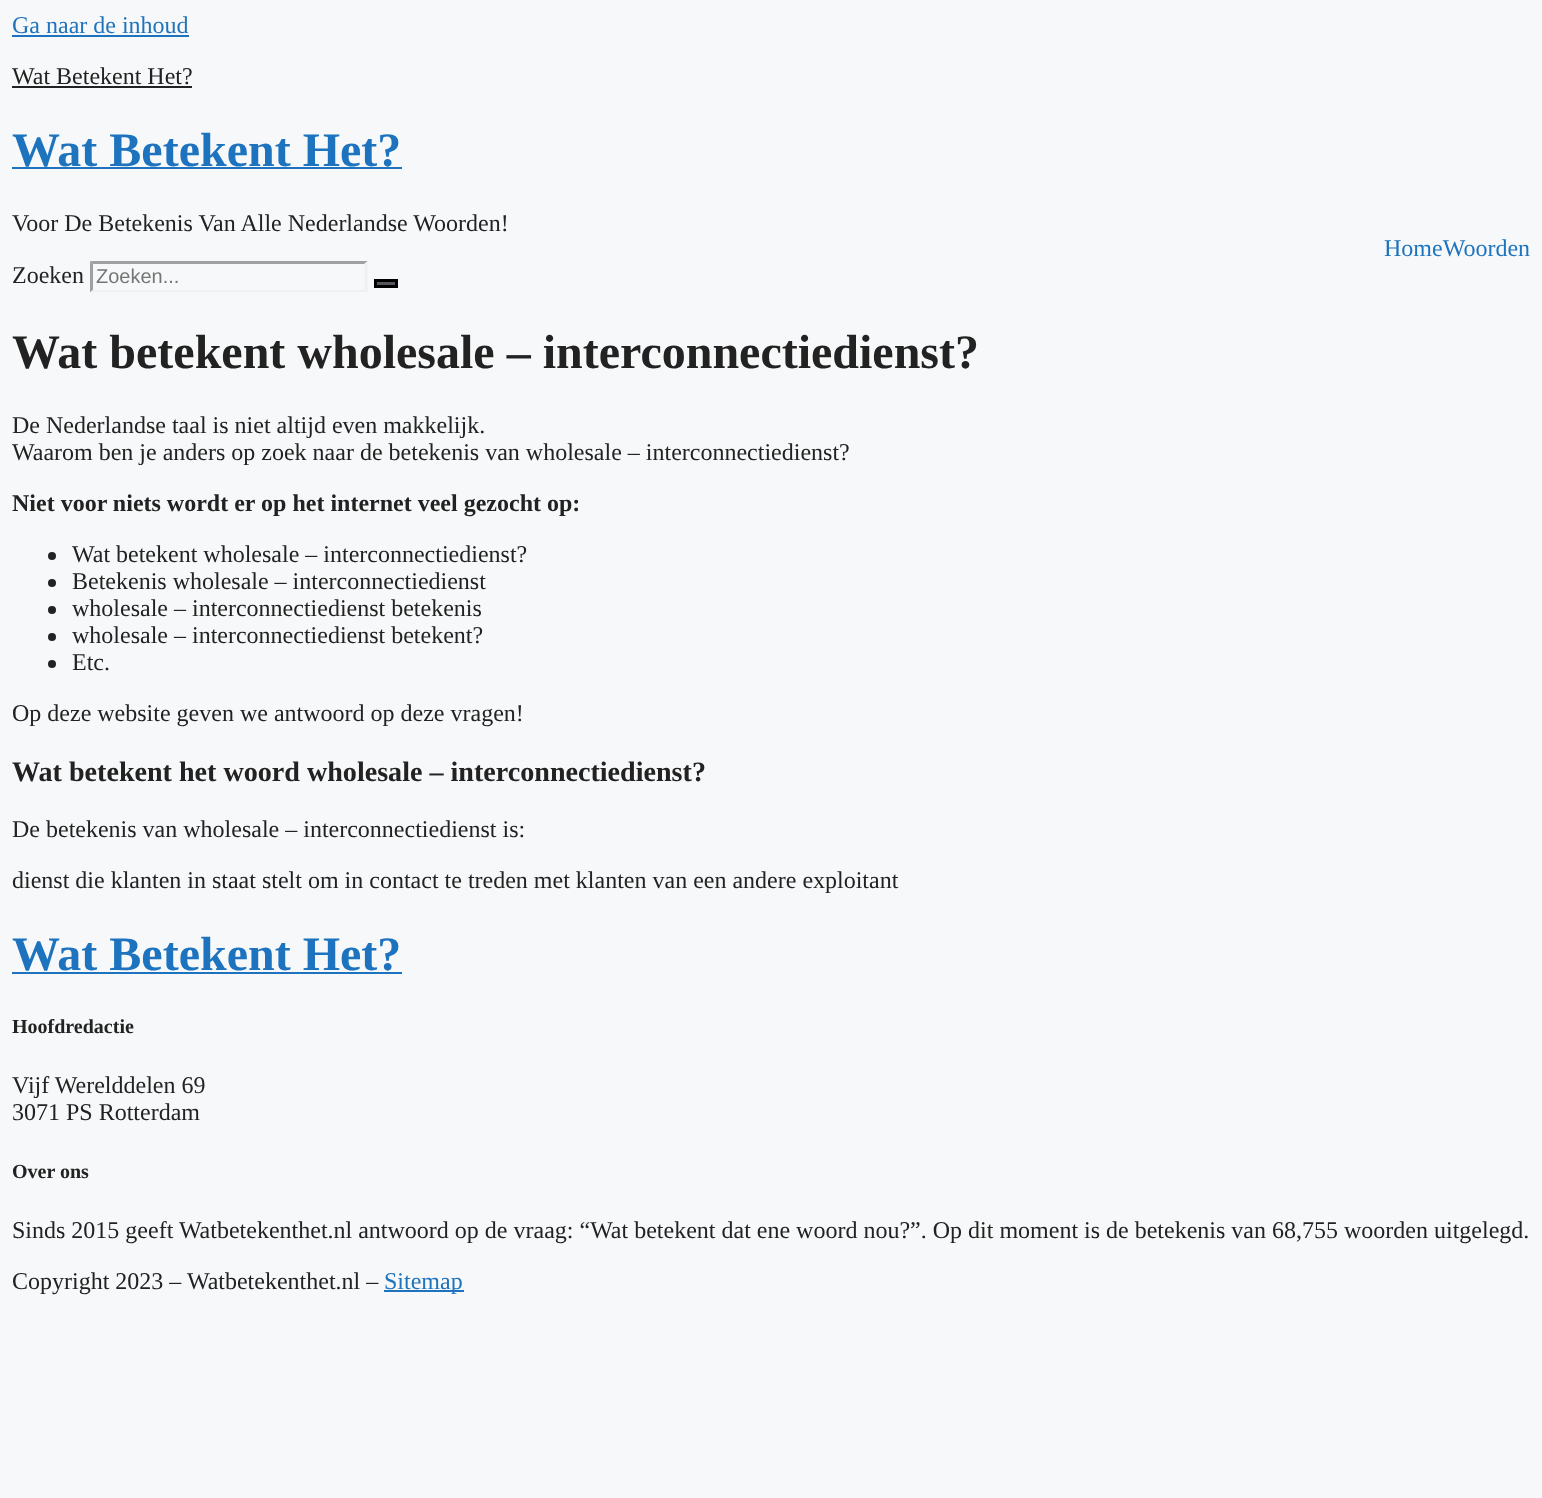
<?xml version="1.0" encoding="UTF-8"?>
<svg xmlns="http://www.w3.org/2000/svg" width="1542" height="1498">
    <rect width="100%" height="100%" fill="#F7F8F9"/>
    <text x="12" y="33" font-family="Liberation Serif" font-size="24" fill="#1E73BE">Ga naar de inhoud</text>
    <rect x="12" y="35" width="177" height="2" fill="#1E73BE"/>
    <text x="12" y="84" font-family="Liberation Serif" font-size="24" fill="#222222">Wat Betekent Het?</text>
    <rect x="12" y="86" width="180" height="2" fill="#222222"/>
    <text x="12" y="166" font-family="Liberation Serif" font-size="48" font-weight="700" fill="#1E73BE">Wat Betekent Het?</text>
    <rect x="12" y="167" width="390" height="2" fill="#1E73BE"/>
    <text x="12" y="231" font-family="Liberation Serif" font-size="24" fill="#222222">Voor De Betekenis Van Alle Nederlandse Woorden!</text>
    <text x="1384" y="256" font-family="Liberation Serif" font-size="24" fill="#1E73BE">HomeWoorden</text>
    <text x="12" y="283" font-family="Liberation Serif" font-size="24" fill="#222222">Zoeken</text>
    <path d="M 90 261 H 368 L 364 264 H 93 Z" fill="#A0A0A0"/>
    <path d="M 367.5 261 V 292.5 L 364.5 289.5 V 264 Z" fill="#F0F0F0"/>
    <path d="M 368 292 H 90 L 93 290 H 364 Z" fill="#F0F0F0"/>
    <path d="M 90 292.5 V 261 L 93 264 V 289.5 Z" fill="#A0A0A0"/>
    <text x="96" y="283" font-family="Liberation Sans" font-size="20" fill="#757575">Zoeken...</text>
    <rect x="375.5" y="280.5" width="21" height="6" fill="#55555E" stroke="#000000" stroke-width="3"/>
    <text x="12" y="368" font-family="Liberation Serif" font-size="48" font-weight="700" fill="#222222">Wat betekent wholesale – interconnectiedienst?</text>
    <text font-family="Liberation Serif" font-size="24" fill="#222222">
        <tspan x="12" y="433">De Nederlandse taal is niet altijd even makkelijk.</tspan>
        <tspan x="12" y="460">Waarom ben je anders op zoek naar de betekenis van wholesale – interconnectiedienst?</tspan>
    </text>
    <text x="12" y="511" font-family="Liberation Serif" font-size="24" font-weight="700" fill="#222222">Niet voor niets wordt er op het internet veel gezocht op:</text>
    <circle cx="52" cy="556" r="4" fill="#222222"/>
    <text x="72" y="562" font-family="Liberation Serif" font-size="24" fill="#222222">Wat betekent wholesale – interconnectiedienst?</text>
    <circle cx="52" cy="583" r="4" fill="#222222"/>
    <text x="72" y="589" font-family="Liberation Serif" font-size="24" fill="#222222">Betekenis wholesale – interconnectiedienst</text>
    <circle cx="52" cy="610" r="4" fill="#222222"/>
    <text x="72" y="616" font-family="Liberation Serif" font-size="24" fill="#222222">wholesale – interconnectiedienst betekenis</text>
    <circle cx="52" cy="637" r="4" fill="#222222"/>
    <text x="72" y="643" font-family="Liberation Serif" font-size="24" fill="#222222">wholesale – interconnectiedienst betekent?</text>
    <circle cx="52" cy="664" r="4" fill="#222222"/>
    <text x="72" y="670" font-family="Liberation Serif" font-size="24" fill="#222222">Etc.</text>
    <text x="12" y="721" font-family="Liberation Serif" font-size="24" fill="#222222">Op deze website geven we antwoord op deze vragen!</text>
    <text x="12" y="781" font-family="Liberation Serif" font-size="28.1" font-weight="700" fill="#222222">Wat betekent het woord wholesale – interconnectiedienst?</text>
    <text x="12" y="837" font-family="Liberation Serif" font-size="24" fill="#222222">De betekenis van wholesale – interconnectiedienst is:</text>
    <text x="12" y="888" font-family="Liberation Serif" font-size="24" fill="#222222">dienst die klanten in staat stelt om in contact te treden met klanten van een andere exploitant</text>
    <text x="12" y="970" font-family="Liberation Serif" font-size="48" font-weight="700" fill="#1E73BE">Wat Betekent Het?</text>
    <rect x="12" y="972" width="390" height="2" fill="#1E73BE"/>
    <text x="12" y="1033" font-family="Liberation Serif" font-size="20" font-weight="700" fill="#222222">Hoofdredactie</text>
    <text font-family="Liberation Serif" font-size="24" fill="#222222">
        <tspan x="12" y="1093">Vijf Werelddelen 69</tspan>
        <tspan x="12" y="1120">3071 PS Rotterdam</tspan>
    </text>
    <text x="12" y="1178" font-family="Liberation Serif" font-size="20" font-weight="700" fill="#222222">Over ons</text>
    <text x="12" y="1238" font-family="Liberation Serif" font-size="24" fill="#222222">Sinds 2015 geeft Watbetekenthet.nl antwoord op de vraag: “Wat betekent dat ene woord nou?”. Op dit moment is de betekenis van 68,755 woorden uitgelegd.</text>
    <text x="12" y="1289" font-family="Liberation Serif" font-size="24" fill="#222222">Copyright 2023 – Watbetekenthet.nl –</text>
    <rect x="384" y="1290" width="80" height="2" fill="#1E73BE"/>
    <text x="384" y="1289" font-family="Liberation Serif" font-size="24" fill="#1E73BE">Sitemap</text>
</svg>
